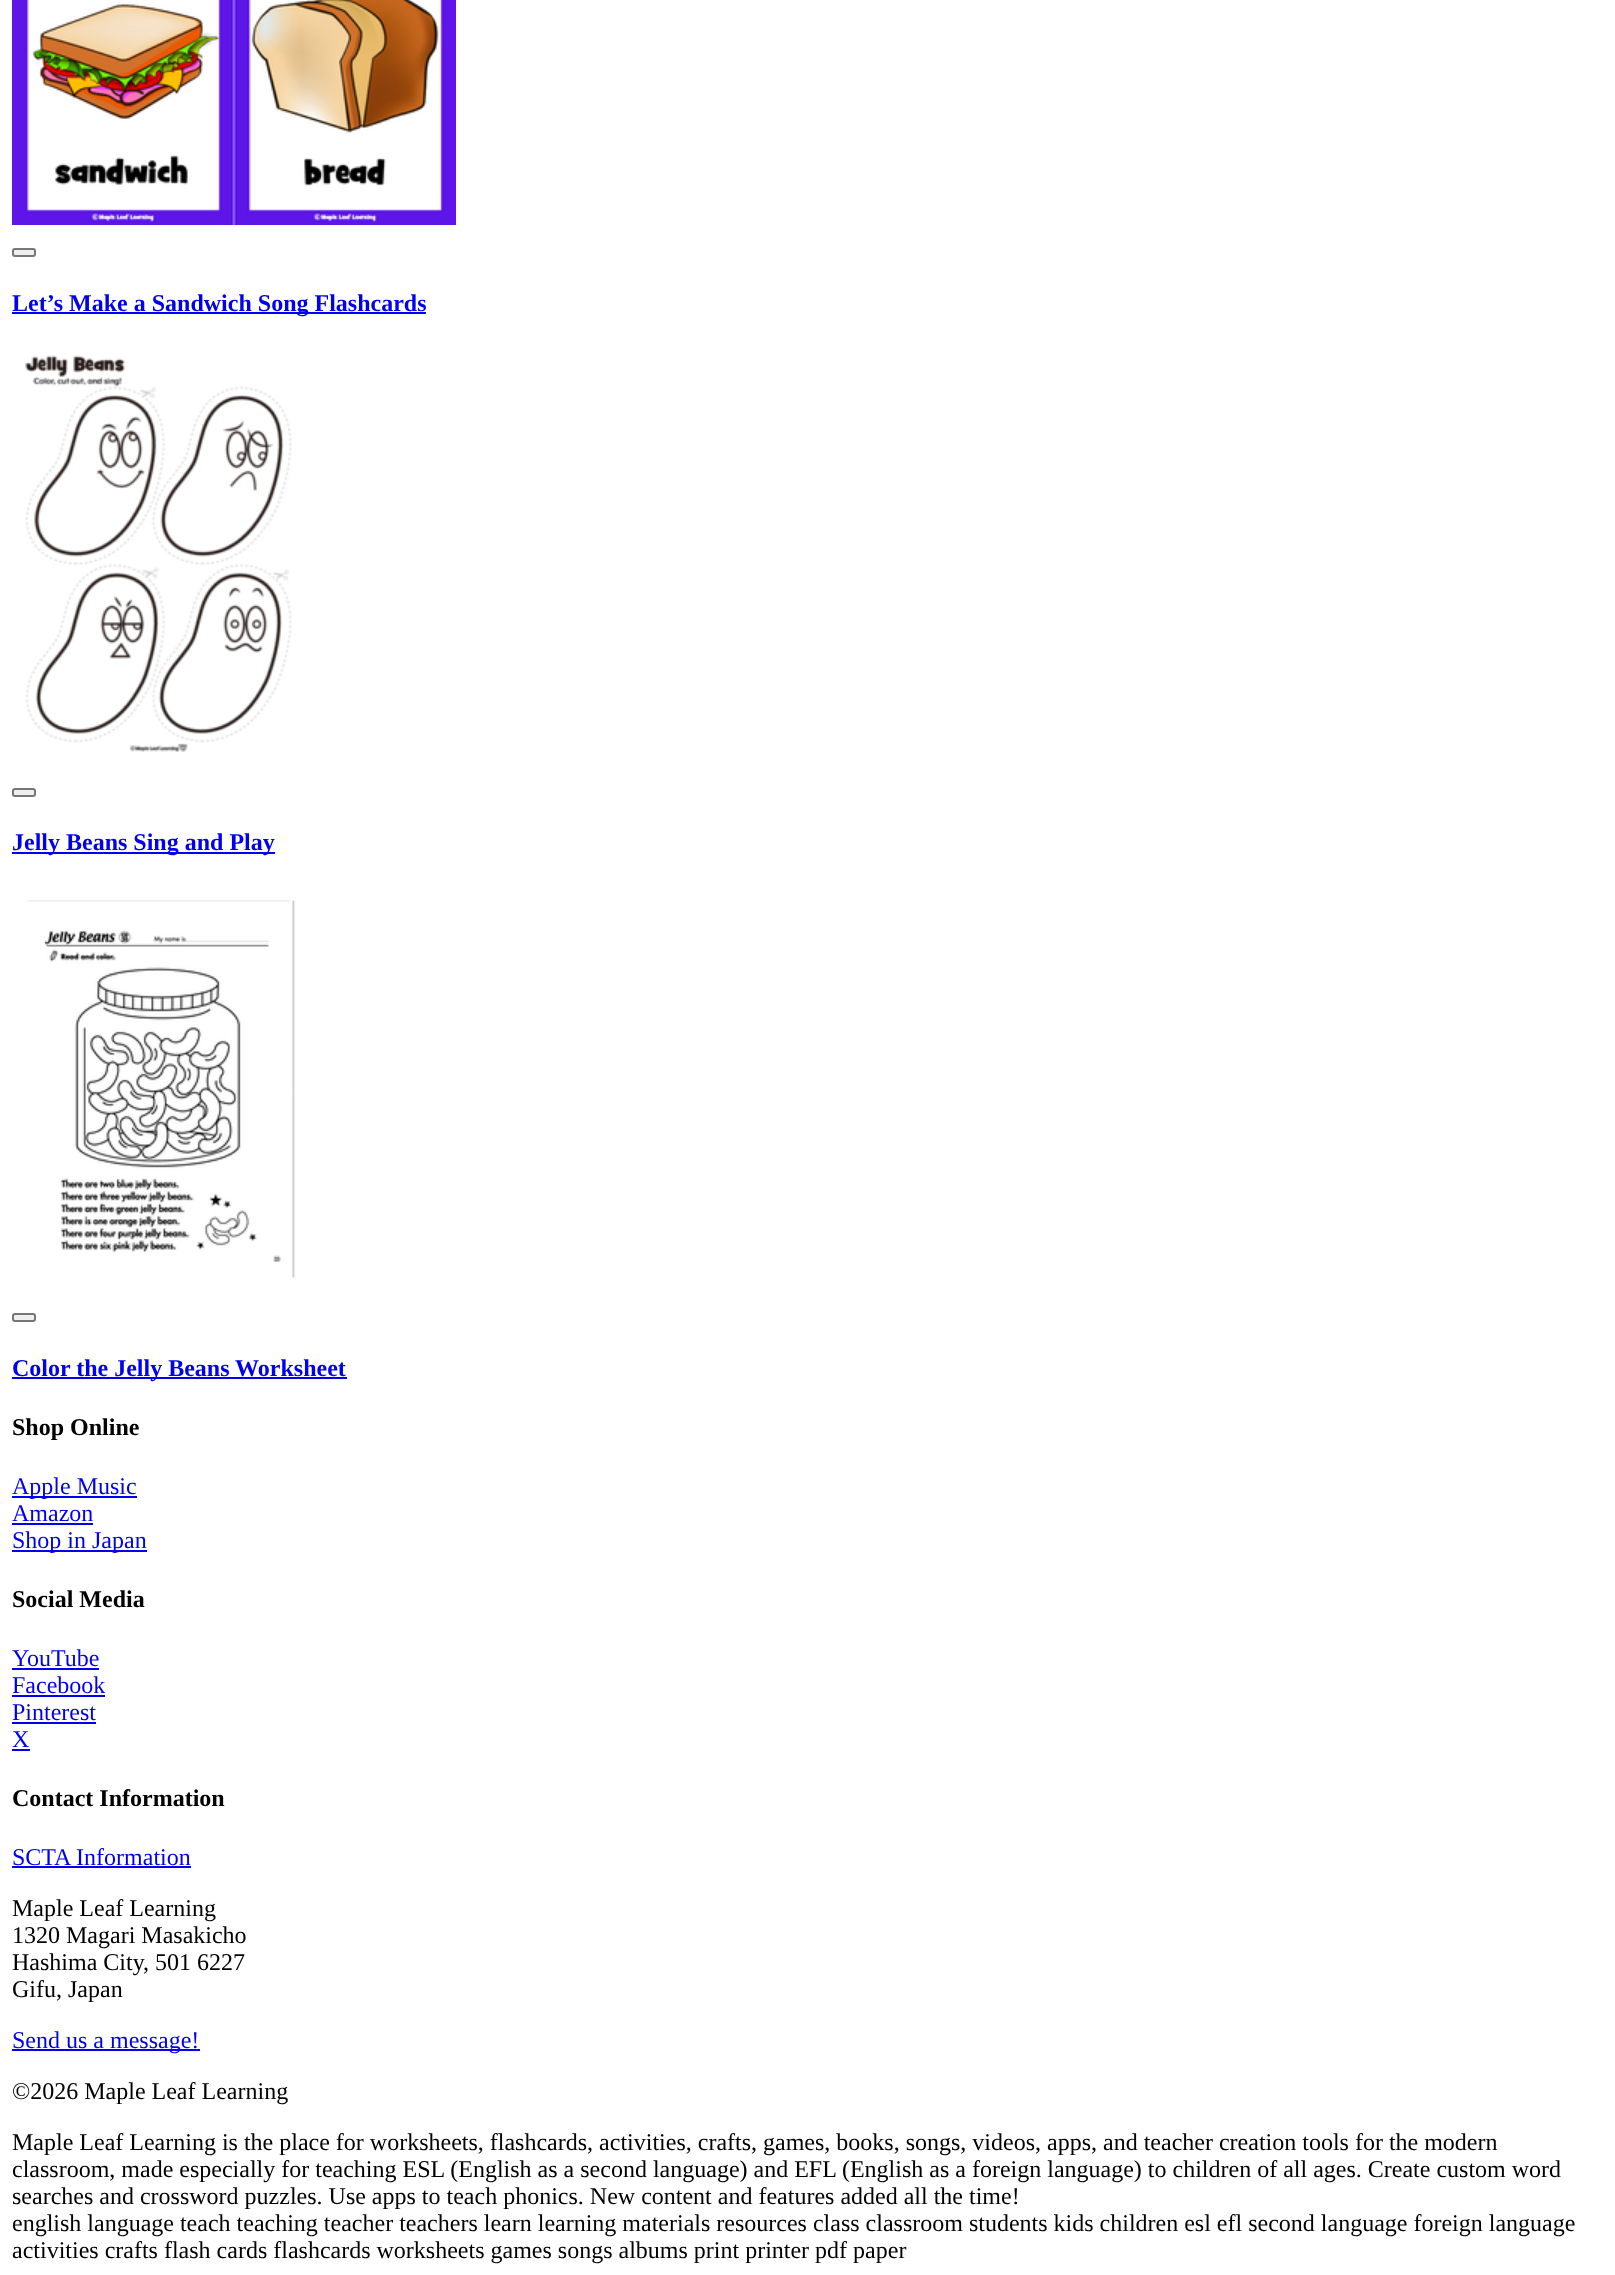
<?xml version="1.0" encoding="UTF-8"?>
<svg xmlns="http://www.w3.org/2000/svg" width="1615" height="2275">
    <rect width="100%" height="100%" fill="#FFFFFF"/>
    <image x="12" y="0" width="444" height="225" href="img_01.png"/>
    <rect x="13" y="249" width="22" height="7" rx="2" fill="#EFEFEF" stroke="#767676" stroke-width="2"/>
    <rect x="12" y="312" width="414" height="2" fill="#0000EE"/>
    <text x="12" y="311" font-family="Liberation Serif" font-size="24" font-weight="700" fill="#0000EE">Let’s Make a Sandwich Song Flashcards</text>
    <image x="25" y="355" width="267" height="397" href="img_02.png"/>
    <rect x="13" y="789" width="22" height="7" rx="2" fill="#EFEFEF" stroke="#767676" stroke-width="2"/>
    <rect x="12" y="852" width="263" height="2" fill="#0000EE"/>
    <text x="12" y="850" font-family="Liberation Serif" font-size="24" font-weight="700" fill="#0000EE">Jelly Beans Sing and Play</text>
    <image x="27" y="900" width="269" height="379" href="img_03.png"/>
    <rect x="13" y="1314" width="22" height="7" rx="2" fill="#EFEFEF" stroke="#767676" stroke-width="2"/>
    <rect x="12" y="1377" width="335" height="2" fill="#0000EE"/>
    <text x="12" y="1376" font-family="Liberation Serif" font-size="24" font-weight="700" fill="#0000EE">Color the Jelly Beans Worksheet</text>
    <text x="12" y="1435" font-family="Liberation Serif" font-size="24" font-weight="700" fill="#000000">Shop Online</text>
    <rect x="12" y="1496" width="125" height="2" fill="#0000EE"/>
    <text font-family="Liberation Serif" font-size="24" fill="#0000EE">
        <tspan x="12" y="1494">Apple Music</tspan>
        <tspan x="12" y="1521">Amazon</tspan>
    </text>
    <rect x="12" y="1523" width="81" height="2" fill="#0000EE"/>
    <rect x="12" y="1550" width="135" height="2" fill="#0000EE"/>
    <text x="12" y="1548" font-family="Liberation Serif" font-size="24" fill="#0000EE">Shop in Japan</text>
    <text x="12" y="1607" font-family="Liberation Serif" font-size="24" font-weight="700" fill="#000000">Social Media</text>
    <text x="12" y="1666" font-family="Liberation Serif" font-size="24" fill="#0000EE">YouTube</text>
    <rect x="12" y="1668" width="87" height="2" fill="#0000EE"/>
    <text x="12" y="1693" font-family="Liberation Serif" font-size="24" fill="#0000EE">Facebook</text>
    <rect x="12" y="1695" width="93" height="2" fill="#0000EE"/>
    <text x="12" y="1720" font-family="Liberation Serif" font-size="24" fill="#0000EE">Pinterest</text>
    <rect x="12" y="1722" width="84" height="2" fill="#0000EE"/>
    <text x="12" y="1747" font-family="Liberation Serif" font-size="24" fill="#0000EE">X</text>
    <rect x="12" y="1749" width="18" height="2" fill="#0000EE"/>
    <text x="12" y="1806" font-family="Liberation Serif" font-size="24" font-weight="700" fill="#000000">Contact Information</text>
    <text x="12" y="1865" font-family="Liberation Serif" font-size="24" fill="#0000EE">SCTA Information</text>
    <rect x="12" y="1866" width="179" height="2" fill="#0000EE"/>
    <text font-family="Liberation Serif" font-size="24" fill="#000000">
        <tspan x="12" y="1916">Maple Leaf Learning</tspan>
        <tspan x="12" y="1943">1320 Magari Masakicho</tspan>
        <tspan x="12" y="1970">Hashima City, 501 6227</tspan>
        <tspan x="12" y="1997">Gifu, Japan</tspan>
    </text>
    <rect x="12" y="2049" width="188" height="2" fill="#0000EE"/>
    <text x="12" y="2048" font-family="Liberation Serif" font-size="24" fill="#0000EE">Send us a message!</text>
    <text x="12" y="2099" font-family="Liberation Serif" font-size="24" fill="#000000">©2026 Maple Leaf Learning</text>
    <text font-family="Liberation Serif" font-size="24" fill="#000000">
        <tspan x="12" y="2150">Maple Leaf Learning is the place for worksheets, flashcards, activities, crafts, games, books, songs, videos, apps, and teacher creation tools for the modern</tspan>
        <tspan x="12" y="2177">classroom, made especially for teaching ESL (English as a second language) and EFL (English as a foreign language) to children of all ages. Create custom word</tspan>
        <tspan x="12" y="2204">searches and crossword puzzles. Use apps to teach phonics. New content and features added all the time!</tspan>
        <tspan x="12" y="2231">english language teach teaching teacher teachers learn learning materials resources class classroom students kids children esl efl second language foreign language</tspan>
        <tspan x="12" y="2258">activities crafts flash cards flashcards worksheets games songs albums print printer pdf paper</tspan>
    </text>
</svg>
